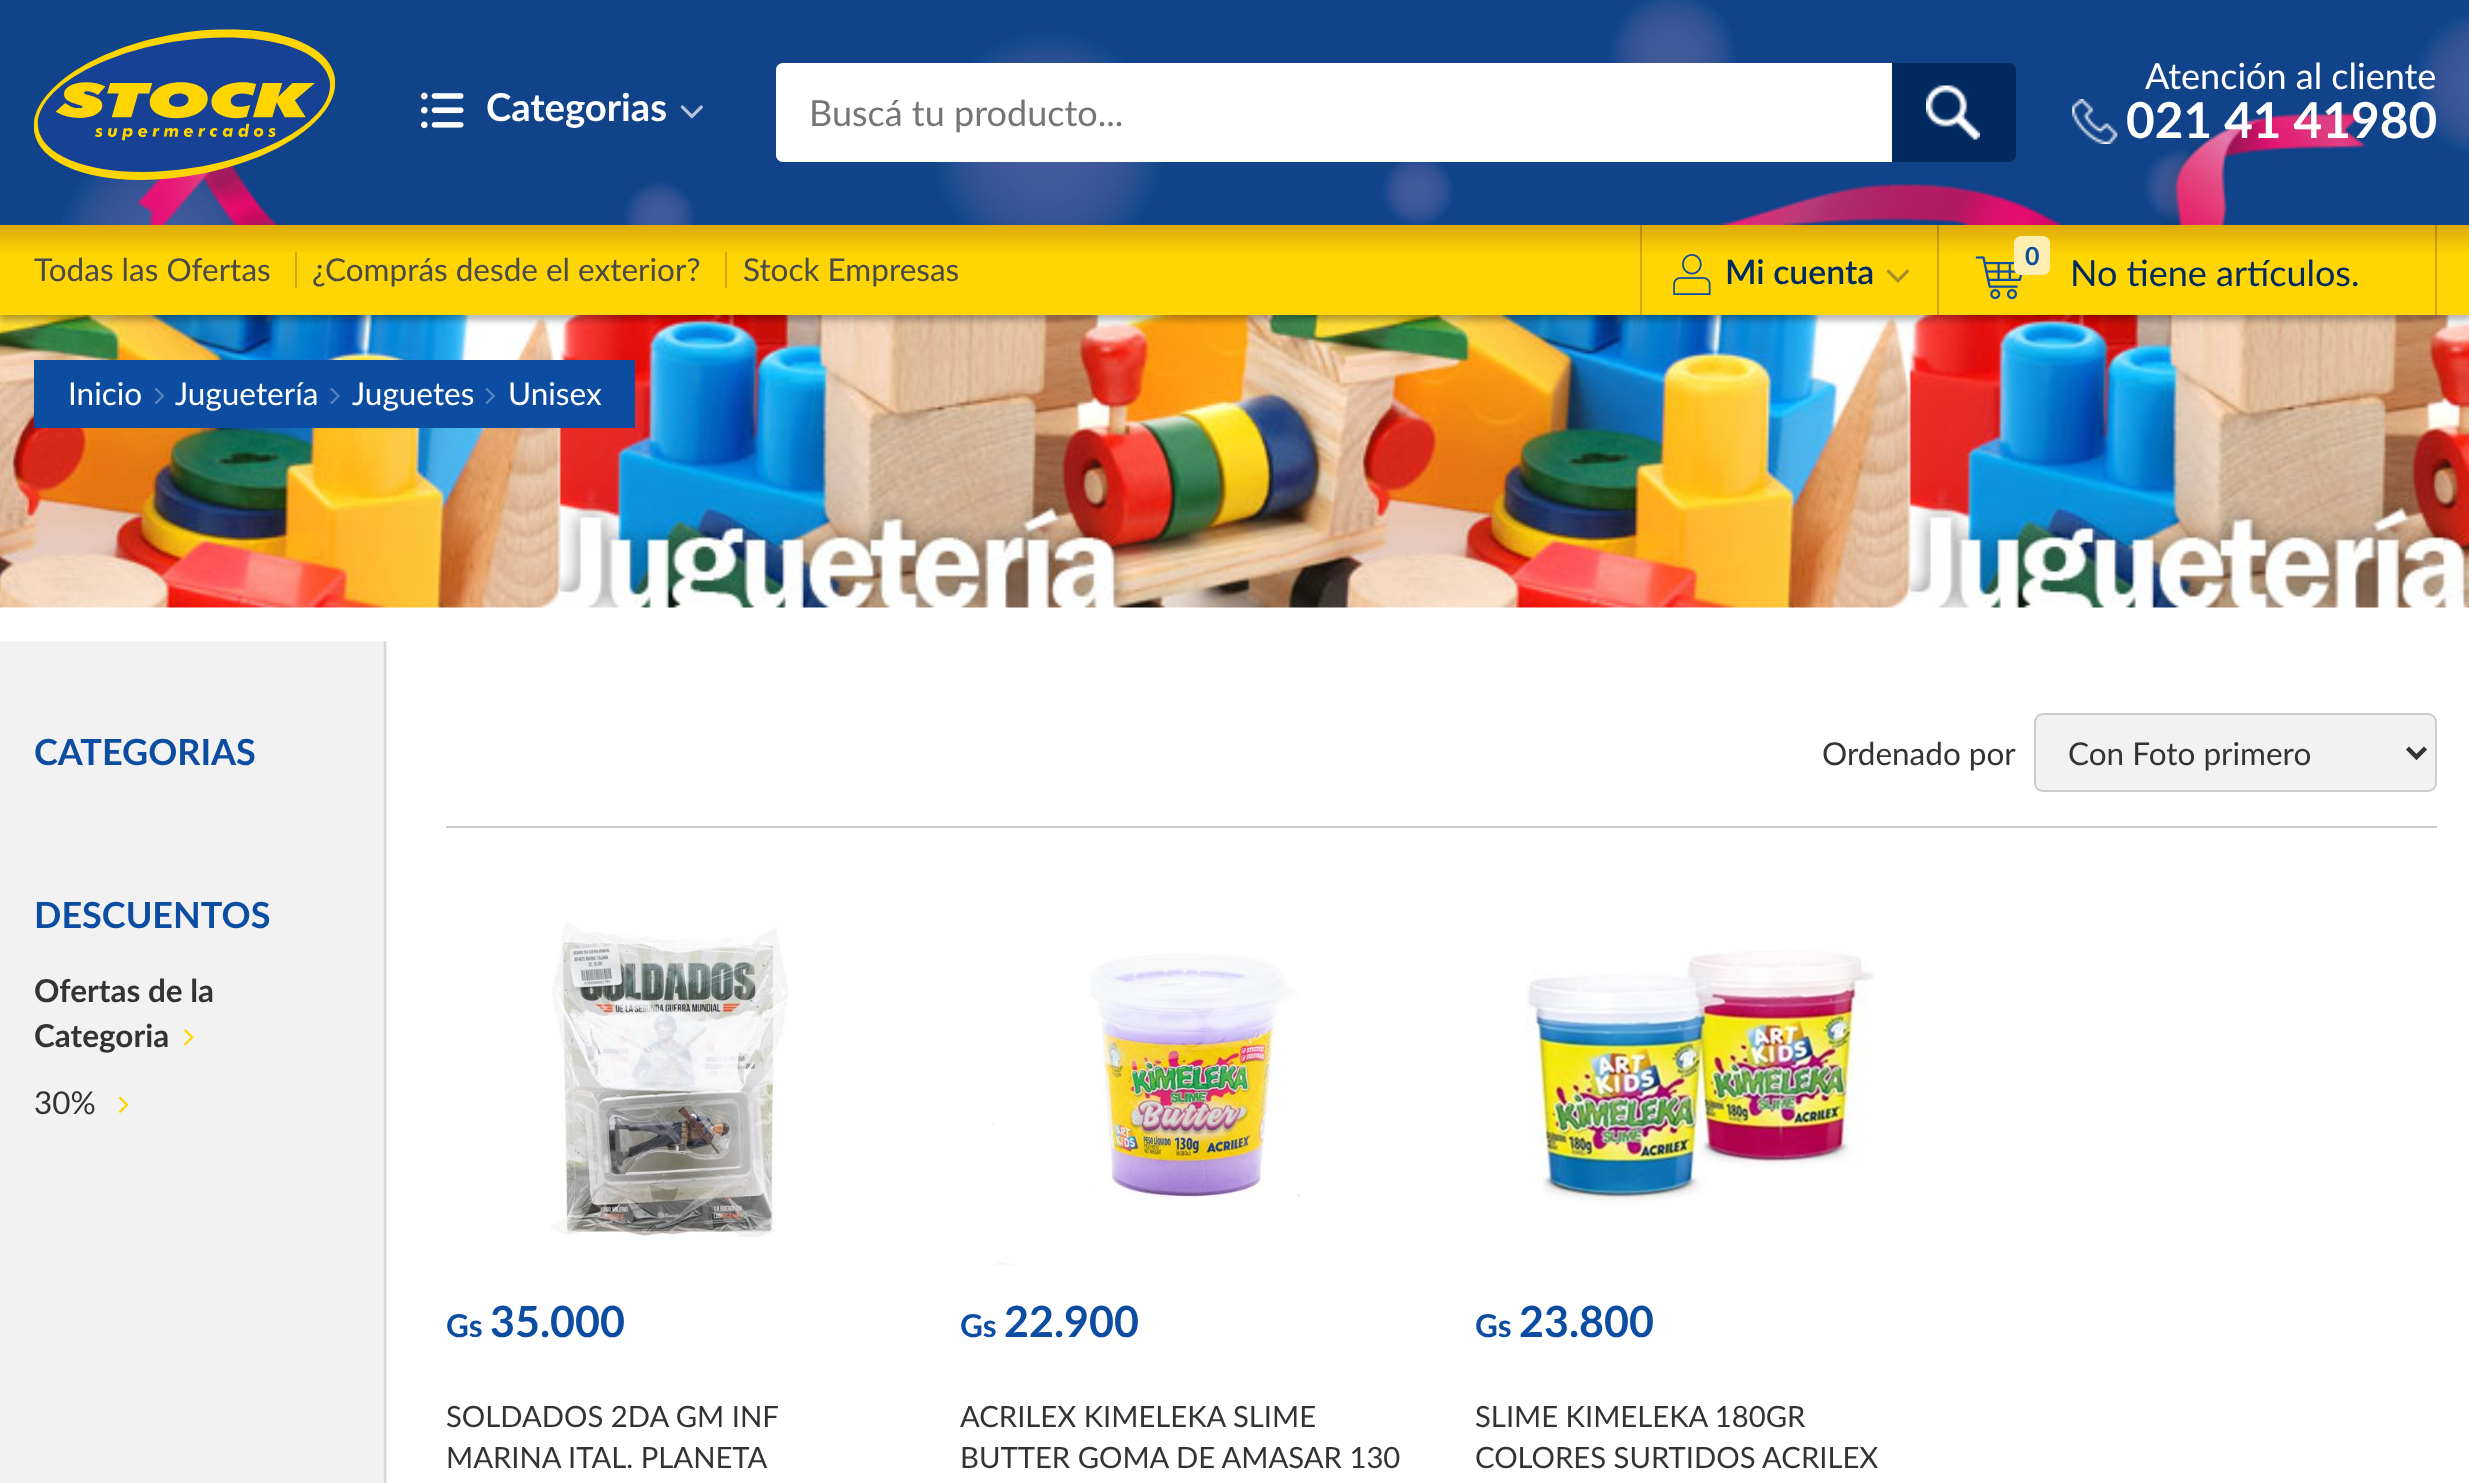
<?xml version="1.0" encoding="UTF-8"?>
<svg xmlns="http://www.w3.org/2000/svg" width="2469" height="1483">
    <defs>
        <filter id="blur1" x="-50%" y="-200%" width="200%" height="500%"><feGaussianBlur stdDeviation="3.5"/></filter>
    </defs>
    <rect width="100%" height="100%" fill="#FFFFFF"/>
    <image x="0" y="315" width="2469" height="293" href="img_11.png"/>
    <rect x="0" y="230" width="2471" height="90" fill="#000000" fill-opacity="0.3" filter="url(#blur1)"/>
    <image x="0" y="0" width="2469" height="225" href="img_01.png"/>
    <image x="34" y="29" width="301" height="151" href="img_02.png"/>
    <image x="421" y="92" width="43" height="37" href="img_03.png"/>
    <text x="486" y="121" font-family="Lato" font-size="38.25" font-weight="700" fill="#FFFFFF">Categorias</text>
    <image x="680" y="105" width="23" height="14" href="img_04.png"/>
    <path d="M 783 63 H 1892 V 162 H 783 C 779 162 776 159 776 155 V 70 C 776 66 779 63 783 63 Z" fill="#FFFFFF"/>
    <text x="809" y="126" font-family="Lato" font-size="36" fill="#757575">Buscá tu producto...</text>
    <path d="M 1892 63 H 2009 C 2013 63 2016 66 2016 70 V 155 C 2016 159 2013 162 2009 162 H 1892 Z" fill="#002A60"/>
    <image x="1926" y="85" width="54" height="55" href="img_05.png"/>
    <text x="2145" y="89" font-family="Lato" font-size="36" fill="#FFFFFF">Atención al cliente</text>
    <image x="2072" y="99" width="46" height="45" href="img_06.png"/>
    <text x="2126" y="138" font-family="Lato" font-size="49.5" font-weight="700" fill="#FFFFFF">021 41 41980</text>
    <rect x="0" y="225" width="2469" height="90" fill="#FFD503"/>
    <image x="0" y="225" width="2469" height="28" href="img_07.png"/>
    <text x="34" y="281" font-family="Lato" font-size="31.5" fill="#4A4A4A">Todas las Ofertas</text>
    <rect x="295" y="252" width="2" height="36" fill="#000000" fill-opacity="0.2"/>
    <text x="312" y="281" font-family="Lato" font-size="31.5" fill="#4A4A4A">¿Comprás desde el exterior?</text>
    <rect x="725" y="252" width="2" height="36" fill="#000000" fill-opacity="0.2"/>
    <text x="743" y="281" font-family="Lato" font-size="31.5" fill="#4A4A4A">Stock Empresas</text>
    <rect x="1640" y="225" width="2" height="90" fill="#000000" fill-opacity="0.2"/>
    <image x="1673" y="254" width="38" height="41" href="img_08.png"/>
    <text x="1725" y="284" font-family="Lato" font-size="33.75" font-weight="600" fill="#002A60">Mi cuenta</text>
    <image x="1886" y="269" width="23" height="14" href="img_09.png"/>
    <rect x="2435" y="225" width="2" height="90" fill="#000000" fill-opacity="0.2"/>
    <rect x="1937" y="225" width="2" height="90" fill="#000000" fill-opacity="0.2"/>
    <image x="1975" y="256" width="48" height="44" href="img_10.png"/>
    <rect x="2014" y="236" width="36" height="39" rx="7" fill="#FFEEB2"/>
    <text x="2025" y="265" font-family="Lato" font-size="25" font-weight="700" fill="#0C4DA2">0</text>
    <text x="2070" y="286" font-family="Lato" font-size="36" fill="#002A60">No tiene artículos.</text>
    <image x="0" y="641" width="387" height="842" href="img_12.png"/>
    <rect x="34" y="360" width="601" height="68" fill="#0C4DA2"/>
    <text x="68" y="405" font-family="Lato" font-size="31.5" fill="#FFFFFF">Inicio</text>
    <image x="155" y="388" width="10" height="16" href="img_13.png"/>
    <text x="175" y="405" font-family="Lato" font-size="31.5" fill="#FFFFFF">Juguetería</text>
    <image x="330" y="388" width="10" height="16" href="img_14.png"/>
    <text x="352" y="405" font-family="Lato" font-size="31.5" fill="#FFFFFF">Juguetes</text>
    <image x="485" y="388" width="10" height="16" href="img_15.png"/>
    <text x="508" y="405" font-family="Lato" font-size="31.5" fill="#FFFFFF">Unisex</text>
    <text x="34" y="765" font-family="Lato" font-size="36" font-weight="700" fill="#0C4DA2">CATEGORIAS</text>
    <text x="34" y="928" font-family="Lato" font-size="36" font-weight="700" fill="#0C4DA2">DESCUENTOS</text>
    <text font-family="Lato" font-size="31.5" font-weight="700" fill="#343333">
        <tspan x="34" y="1002">Ofertas de la</tspan>
        <tspan x="34" y="1047">Categoria</tspan>
    </text>
    <image x="184" y="1029" width="10" height="17" href="img_16.png"/>
    <text x="34" y="1114" font-family="Lato" font-size="31.5" fill="#343333">30%</text>
    <image x="118" y="1096" width="11" height="17" href="img_17.png"/>
    <rect x="446" y="826" width="1991" height="2" fill="#CCCCCC"/>
    <text x="1822" y="765" font-family="Lato" font-size="31.5" fill="#343333">Ordenado por</text>
    <rect x="2035" y="714" width="401" height="77" rx="8" fill="#F2F2F2" stroke="#CCCCCC" stroke-width="2"/>
    <path d="M 2407.5 748 L 2416.5 757 L 2425.5 748" fill="none" stroke="#343333" stroke-width="4.5"/>
    <text x="2068" y="765" font-family="Lato" font-size="31.5" fill="#343333">Con Foto primero</text>
    <image x="550" y="922" width="238" height="316" href="img_18.png"/>
    <text x="446" y="1337" font-family="Lato" font-size="31.5" font-weight="700" fill="#0C4DA2">Gs</text>
    <text x="490" y="1337" font-family="Lato" font-size="43" font-weight="700" fill="#0C4DA2">35.000</text>
    <text font-family="Lato" font-size="29.25" fill="#343333">
        <tspan x="446" y="1427">SOLDADOS 2DA GM INF</tspan>
        <tspan x="446" y="1468">MARINA ITAL. PLANETA</tspan>
    </text>
    <image x="992" y="953" width="310" height="313" href="img_19.png"/>
    <text x="960" y="1337" font-family="Lato" font-size="31.5" font-weight="700" fill="#0C4DA2">Gs</text>
    <text x="1004" y="1337" font-family="Lato" font-size="43" font-weight="700" fill="#0C4DA2">22.900</text>
    <text font-family="Lato" font-size="29.25" fill="#343333">
        <tspan x="960" y="1427">ACRILEX KIMELEKA SLIME</tspan>
        <tspan x="960" y="1468">BUTTER GOMA DE AMASAR 130</tspan>
    </text>
    <image x="1526" y="950" width="349" height="258" href="img_20.png"/>
    <text x="1475" y="1337" font-family="Lato" font-size="31.5" font-weight="700" fill="#0C4DA2">Gs</text>
    <text x="1519" y="1337" font-family="Lato" font-size="43" font-weight="700" fill="#0C4DA2">23.800</text>
    <text font-family="Lato" font-size="29.25" fill="#343333">
        <tspan x="1475" y="1427">SLIME KIMELEKA 180GR</tspan>
        <tspan x="1475" y="1468">COLORES SURTIDOS ACRILEX</tspan>
    </text>
</svg>
